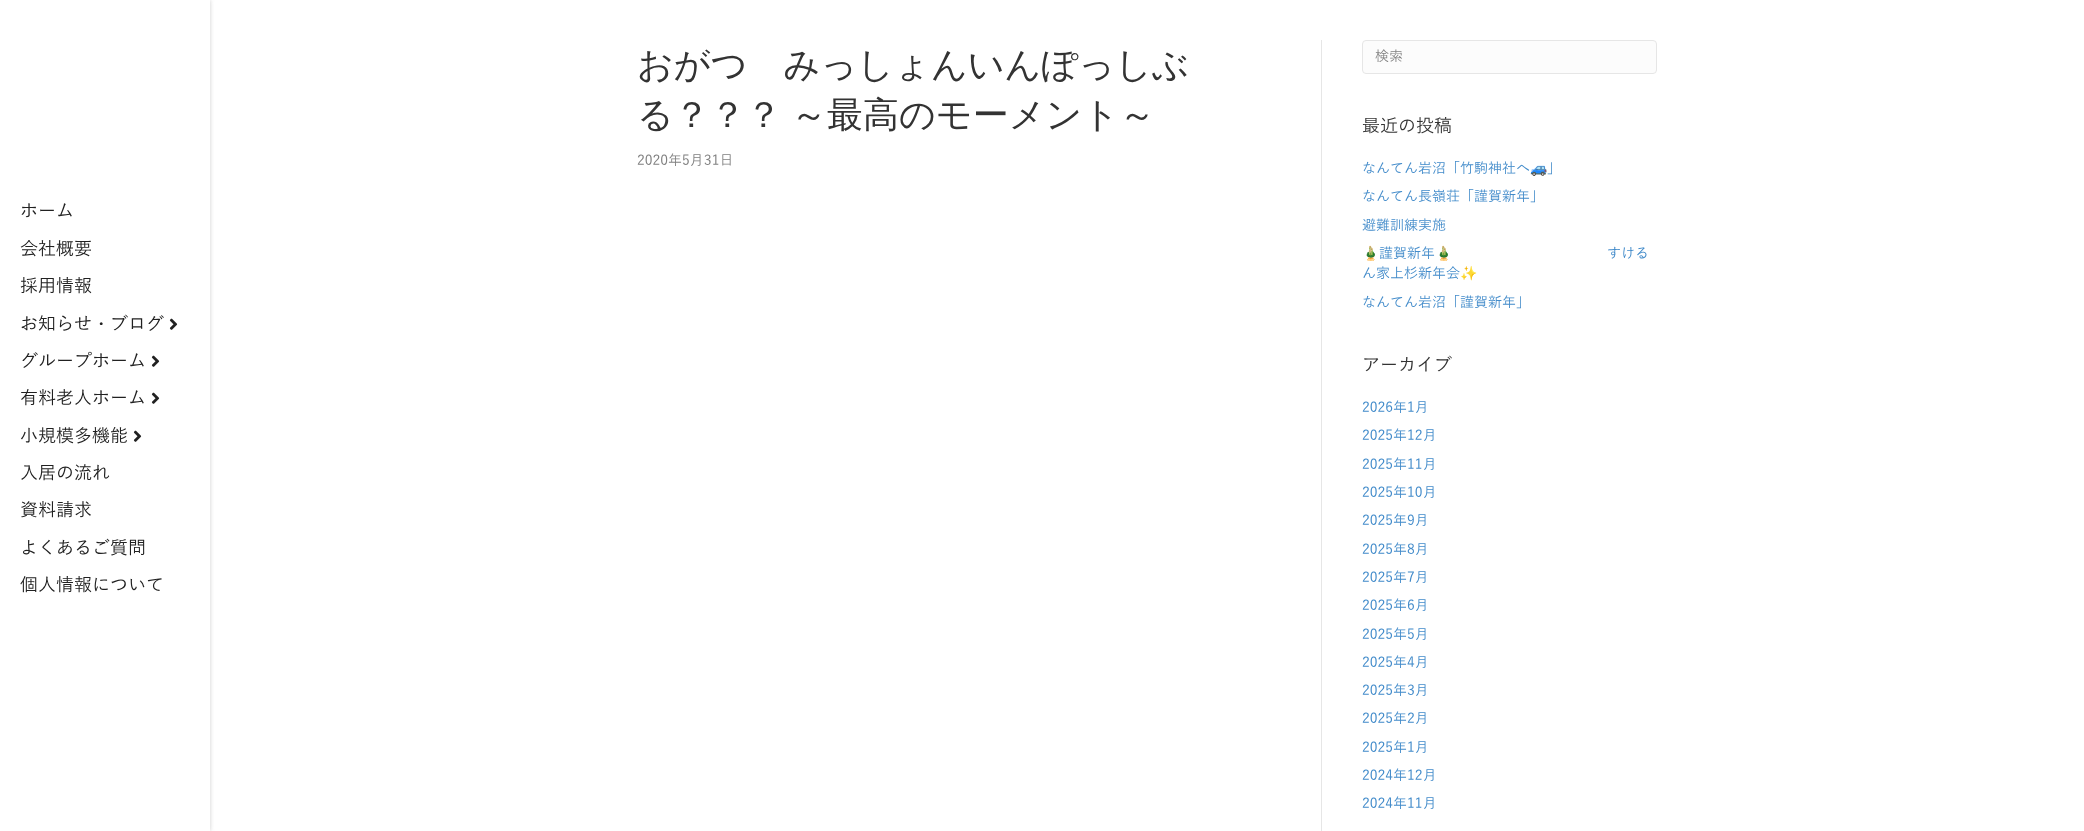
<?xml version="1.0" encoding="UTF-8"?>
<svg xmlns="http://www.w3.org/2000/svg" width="2084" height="831">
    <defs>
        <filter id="blur1" x="-50%" y="-200%" width="200%" height="500%"><feGaussianBlur stdDeviation="2"/></filter>
    </defs>
    <rect width="100%" height="100%" fill="#FFFFFF"/>
    <rect x="0" y="0" width="210" height="831" fill="#CECECE" filter="url(#blur1)"/>
    <rect x="0" y="0" width="210" height="831" fill="#FFFFFF"/>
    <text x="20" y="217" font-family="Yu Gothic" font-size="18" font-weight="500" fill="#212121">ホーム</text>
    <text x="20" y="255" font-family="Yu Gothic" font-size="18" font-weight="500" fill="#212121">会社概要</text>
    <text x="20" y="292" font-family="Yu Gothic" font-size="18" font-weight="500" fill="#212121">採用情報</text>
    <text x="20" y="330" font-family="Yu Gothic" font-size="18" font-weight="500" fill="#212121">お知らせ ブログ</text>
    <image x="169" y="318" width="9" height="12" href="img_01.png"/>
    <text x="92" y="330" font-family="WenQuanYi Zen Hei" font-size="18" font-weight="500" fill="#212121">・</text>
    <text x="20" y="367" font-family="Yu Gothic" font-size="18" font-weight="500" fill="#212121">グループホーム</text>
    <image x="151" y="355" width="9" height="12" href="img_01.png"/>
    <text x="20" y="404" font-family="Yu Gothic" font-size="18" font-weight="500" fill="#212121">有料老人ホーム</text>
    <image x="151" y="392" width="9" height="12" href="img_01.png"/>
    <text x="20" y="442" font-family="Yu Gothic" font-size="18" font-weight="500" fill="#212121">小規模多機能</text>
    <image x="133" y="430" width="9" height="12" href="img_01.png"/>
    <text x="20" y="479" font-family="Yu Gothic" font-size="18" font-weight="500" fill="#212121">入居の流れ</text>
    <text x="20" y="516" font-family="Yu Gothic" font-size="18" font-weight="500" fill="#212121">資料請求</text>
    <text x="20" y="554" font-family="Yu Gothic" font-size="18" font-weight="500" fill="#212121">よくあるご質問</text>
    <text x="20" y="591" font-family="Yu Gothic" font-size="18" font-weight="500" fill="#212121">個人情報について</text>
    <rect x="1321" y="40" width="1" height="791" fill="#E6E6E6"/>
    <text font-family="WenQuanYi Zen Hei" font-size="36" font-weight="500" fill="#333333">
        <tspan x="637" y="77">おがつ　みっしょんいんぽっしぶ</tspan>
        <tspan x="637" y="127">る？？？</tspan>
    </text>
    <text x="791" y="127" font-family="WenQuanYi Zen Hei" font-size="36" font-weight="500" fill="#333333">～最高のモーメント～</text>
    <text x="637" y="165" font-family="Yu Gothic" font-size="14" font-weight="500" fill="#808080">2020年5月31日</text>
    <rect x="1362.5" y="40.5" width="294" height="33" rx="3.5" fill="#FCFCFC" stroke="#E6E6E6"/>
    <text x="1375" y="61" font-family="Yu Gothic" font-size="14" font-weight="500" fill="#808080">検索</text>
    <text x="1362" y="132" font-family="Yu Gothic" font-size="18" font-weight="500" fill="#333333">最近の投稿</text>
    <text x="1362" y="173" font-family="Yu Gothic" font-size="14" font-weight="500" fill="#428BCA">なんてん岩沼「竹駒神社へ</text>
    <text x="1530" y="173" font-family="Noto Color Emoji" font-size="14" fill="#428BCA">🚙</text>
    <text x="1547" y="173" font-family="Yu Gothic" font-size="14" font-weight="500" fill="#428BCA">」</text>
    <text x="1362" y="201" font-family="Yu Gothic" font-size="14" font-weight="500" fill="#428BCA">なんてん長嶺荘「謹賀新年」</text>
    <text x="1362" y="230" font-family="Yu Gothic" font-size="14" font-weight="500" fill="#428BCA">避難訓練実施</text>
    <text x="1362" y="258" font-family="Noto Color Emoji" font-size="14" fill="#428BCA">🎍</text>
    <text x="1379" y="258" font-family="Yu Gothic" font-size="14" font-weight="500" fill="#428BCA">謹賀新年</text>
    <text x="1435" y="258" font-family="Noto Color Emoji" font-size="14" fill="#428BCA">🎍</text>
    <text x="1607" y="258" font-family="Yu Gothic" font-size="14" font-weight="500" fill="#428BCA">すける</text>
    <text x="1362" y="278" font-family="Yu Gothic" font-size="14" font-weight="500" fill="#428BCA">ん家上杉新年会</text>
    <text x="1460" y="278" font-family="Noto Color Emoji" font-size="14" fill="#428BCA">✨</text>
    <text x="1362" y="307" font-family="Yu Gothic" font-size="14" font-weight="500" fill="#428BCA">なんてん岩沼「謹賀新年」</text>
    <text x="1362" y="371" font-family="Yu Gothic" font-size="18" font-weight="500" fill="#333333">アーカイブ</text>
    <text x="1362" y="412" font-family="Yu Gothic" font-size="14" font-weight="500" fill="#428BCA">2026年1月</text>
    <text x="1362" y="440" font-family="Yu Gothic" font-size="14" font-weight="500" fill="#428BCA">2025年12月</text>
    <text x="1362" y="469" font-family="Yu Gothic" font-size="14" font-weight="500" fill="#428BCA">2025年11月</text>
    <text x="1362" y="497" font-family="Yu Gothic" font-size="14" font-weight="500" fill="#428BCA">2025年10月</text>
    <text x="1362" y="525" font-family="Yu Gothic" font-size="14" font-weight="500" fill="#428BCA">2025年9月</text>
    <text x="1362" y="554" font-family="Yu Gothic" font-size="14" font-weight="500" fill="#428BCA">2025年8月</text>
    <text x="1362" y="582" font-family="Yu Gothic" font-size="14" font-weight="500" fill="#428BCA">2025年7月</text>
    <text x="1362" y="610" font-family="Yu Gothic" font-size="14" font-weight="500" fill="#428BCA">2025年6月</text>
    <text x="1362" y="639" font-family="Yu Gothic" font-size="14" font-weight="500" fill="#428BCA">2025年5月</text>
    <text x="1362" y="667" font-family="Yu Gothic" font-size="14" font-weight="500" fill="#428BCA">2025年4月</text>
    <text x="1362" y="695" font-family="Yu Gothic" font-size="14" font-weight="500" fill="#428BCA">2025年3月</text>
    <text x="1362" y="723" font-family="Yu Gothic" font-size="14" font-weight="500" fill="#428BCA">2025年2月</text>
    <text x="1362" y="752" font-family="Yu Gothic" font-size="14" font-weight="500" fill="#428BCA">2025年1月</text>
    <text x="1362" y="780" font-family="Yu Gothic" font-size="14" font-weight="500" fill="#428BCA">2024年12月</text>
    <text x="1362" y="808" font-family="Yu Gothic" font-size="14" font-weight="500" fill="#428BCA">2024年11月</text>
</svg>
